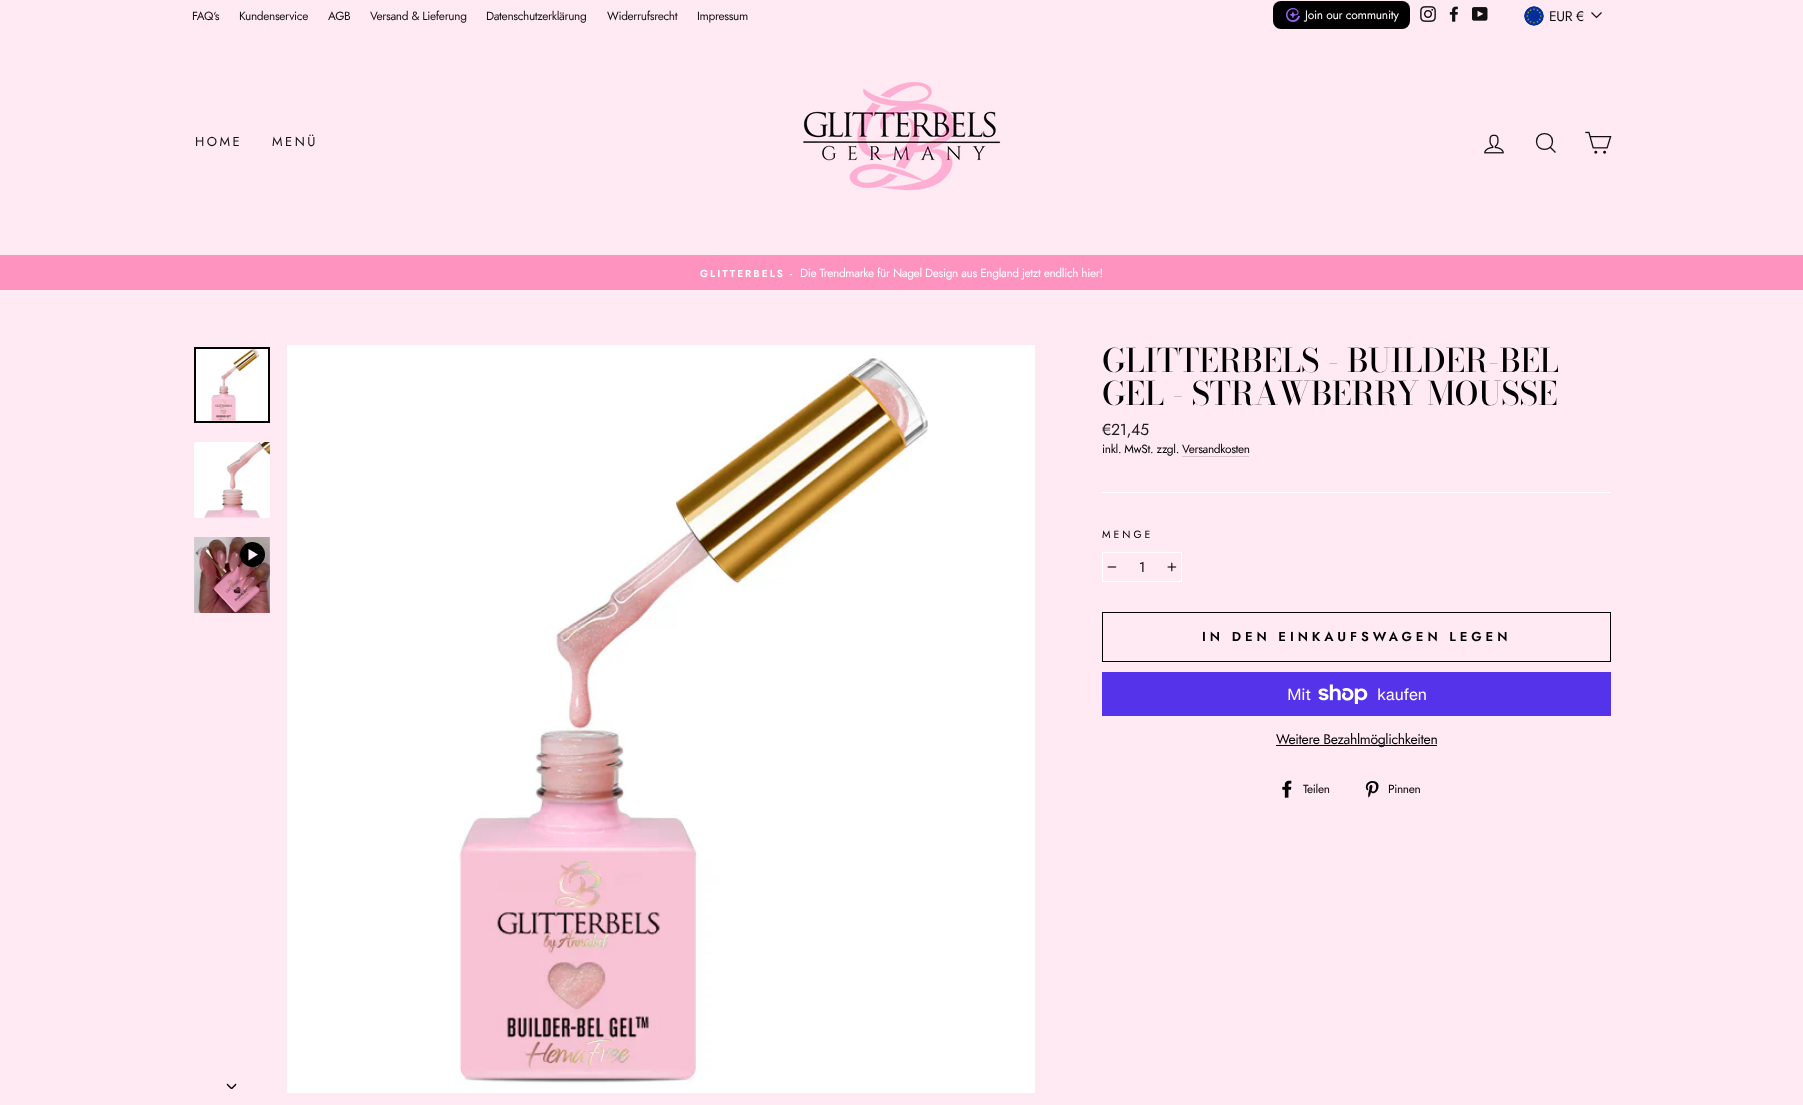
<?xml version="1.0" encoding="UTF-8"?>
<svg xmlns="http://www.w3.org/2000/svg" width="1803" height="1105">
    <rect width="100%" height="100%" fill="#FFE9F2"/>
    <text x="192" y="20" font-family="Jost" font-size="11.9" letter-spacing="-0.35" fill="#111111">FAQ‘s</text>
    <text x="239" y="20" font-family="Jost" font-size="11.9" letter-spacing="-0.35" fill="#111111">Kundenservice</text>
    <text x="328" y="20" font-family="Jost" font-size="11.9" letter-spacing="-0.35" fill="#111111">AGB</text>
    <text x="370" y="20" font-family="Jost" font-size="11.9" letter-spacing="-0.35" fill="#111111">Versand &amp; Lieferung</text>
    <text x="486" y="20" font-family="Jost" font-size="11.9" letter-spacing="-0.35" fill="#111111">Datenschutzerklärung</text>
    <text x="607" y="20" font-family="Jost" font-size="11.9" letter-spacing="-0.35" fill="#111111">Widerrufsrecht</text>
    <text x="697" y="20" font-family="Jost" font-size="11.9" letter-spacing="-0.35" fill="#111111">Impressum</text>
    <rect x="1273" y="1" width="137" height="28" rx="8" fill="#000000"/>
    <image x="1286" y="8" width="14" height="14" href="img_01.png"/>
    <text x="1305" y="19" font-family="Jost" font-size="12" letter-spacing="-0.25" fill="#FFFFFF">Join our community</text>
    <image x="1420" y="6" width="16" height="16" href="img_02.png"/>
    <image x="1449" y="6" width="9" height="16" href="img_03.png"/>
    <image x="1472" y="7" width="16" height="14" href="img_04.png"/>
    <image x="1524" y="6" width="20" height="20" href="img_05.png"/>
    <text x="1549" y="21" font-family="Jost" font-size="14" letter-spacing="-0.35" fill="#111111">EUR €</text>
    <path d="M 1591.5 12.5 L 1596.5 17.5 L 1601.5 12.5" fill="none" stroke="#111111" stroke-width="1.2"/>
    <text x="195" y="146" font-family="Jost" font-size="13" letter-spacing="2.5" fill="#111111">HOME</text>
    <text x="272" y="146" font-family="Jost" font-size="13" letter-spacing="2.5" fill="#111111">MENÜ</text>
    <image x="803" y="82" width="198" height="109" href="img_06.png"/>
    <image x="1484" y="134" width="20" height="20" href="img_07.png"/>
    <path d="M 1552.5 141.5 C 1552.5 152 1536.5 152 1536.5 141.5 C 1536.5 131 1552.5 131 1552.5 141.5 Z M 1555.5 152.5 L 1550.5 147.5" fill="none" stroke="#111111" stroke-width="1.3"/>
    <image x="1585" y="131" width="27" height="23" href="img_08.png"/>
    <rect x="0" y="255" width="1803" height="35" fill="#FF93C0"/>
    <text x="700" y="277" font-family="Jost" font-size="10.1" font-weight="600" letter-spacing="2" fill="#FFFFFF">GLITTERBELS -</text>
    <text x="800" y="277" font-family="Jost" font-size="11.9" letter-spacing="-0.35" fill="#FFFFFF">Die Trendmarke für Nagel Design aus England jetzt endlich hier!</text>
    <rect x="196" y="349" width="72" height="72" fill="#FFFFFF"/>
    <image x="211" y="349" width="49" height="72" href="img_09.png"/>
    <rect x="195" y="348" width="74" height="74" fill="none" stroke="#000000" stroke-width="2"/>
    <rect x="194" y="442" width="76" height="76" fill="#FFFFFF"/>
    <image x="204" y="442" width="66" height="76" href="img_10.png"/>
    <image x="194" y="537" width="76" height="76" href="img_11.png"/>
    <circle cx="252.5" cy="554.5" r="12.5" fill="#000000"/>
    <path d="M 248.5 549 V 560.5 L 258 554.5 Z" fill="#FFE9F2"/>
    <image x="226" y="1083" width="11" height="6" href="img_12.png"/>
    <rect x="287" y="345" width="748" height="748" fill="#FFFFFF"/>
    <image x="459" y="358" width="470" height="726" href="img_13.png"/>
    <text font-family="Bodoni Moda" font-size="32.25" font-weight="500" fill="#000000">
        <tspan x="1102" y="372">GLITTERBELS - BUILDER-BEL</tspan>
        <tspan x="1102" y="405">GEL - STRAWBERRY MOUSSE</tspan>
    </text>
    <text x="1102" y="435" font-family="Jost" font-size="16" letter-spacing="-0.35" fill="#1C1D1D">€21,45</text>
    <text x="1102" y="453" font-family="Jost" font-size="11.9" letter-spacing="-0.35" fill="#000000">inkl. MwSt. zzgl. Versandkosten</text>
    <rect x="1182" y="456" width="67" height="1" fill="#D9C6CE"/>
    <rect x="1102" y="492" width="509" height="1" fill="#FFFFFF"/>
    <text x="1102" y="538" font-family="Jost" font-size="10.5" letter-spacing="3" fill="#000000">MENGE</text>
    <rect x="1102.5" y="552.5" width="79" height="29" fill="none" stroke="#FFFFFF"/>
    <image x="1107" y="566" width="10" height="2" href="img_14.png"/>
    <text x="1139" y="572" font-family="Jost" font-size="14" letter-spacing="-0.35" fill="#000000">1</text>
    <image x="1167" y="562" width="10" height="10" href="img_15.png"/>
    <rect x="1102.5" y="612.5" width="508" height="49" fill="none" stroke="#000000"/>
    <text x="1202" y="641" font-family="Jost" font-size="13" font-weight="600" letter-spacing="3.9" fill="#000000">IN DEN EINKAUFSWAGEN LEGEN</text>
    <rect x="1102" y="672" width="509" height="44" fill="#5433EB"/>
    <text x="1287" y="700" font-family="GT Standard" font-size="16" letter-spacing="-0.35" fill="#FFFFFF">Mit</text>
    <image x="1318" y="684" width="50" height="20" href="img_16.png"/>
    <text x="1377" y="700" font-family="GT Standard" font-size="16" letter-spacing="-0.35" fill="#FFFFFF">kaufen</text>
    <rect x="1276" y="745" width="161" height="1" fill="#000000"/>
    <text x="1276" y="744" font-family="Jost" font-size="14" letter-spacing="-0.35" fill="#000000">Weitere Bezahlmöglichkeiten</text>
    <image x="1282" y="780" width="10" height="18" href="img_17.png"/>
    <text x="1303" y="793" font-family="Jost" font-size="11.9" letter-spacing="-0.35" fill="#000000">Teilen</text>
    <image x="1365" y="781" width="14" height="17" href="img_18.png"/>
    <text x="1388" y="793" font-family="Jost" font-size="11.9" letter-spacing="-0.35" fill="#000000">Pinnen</text>
</svg>
